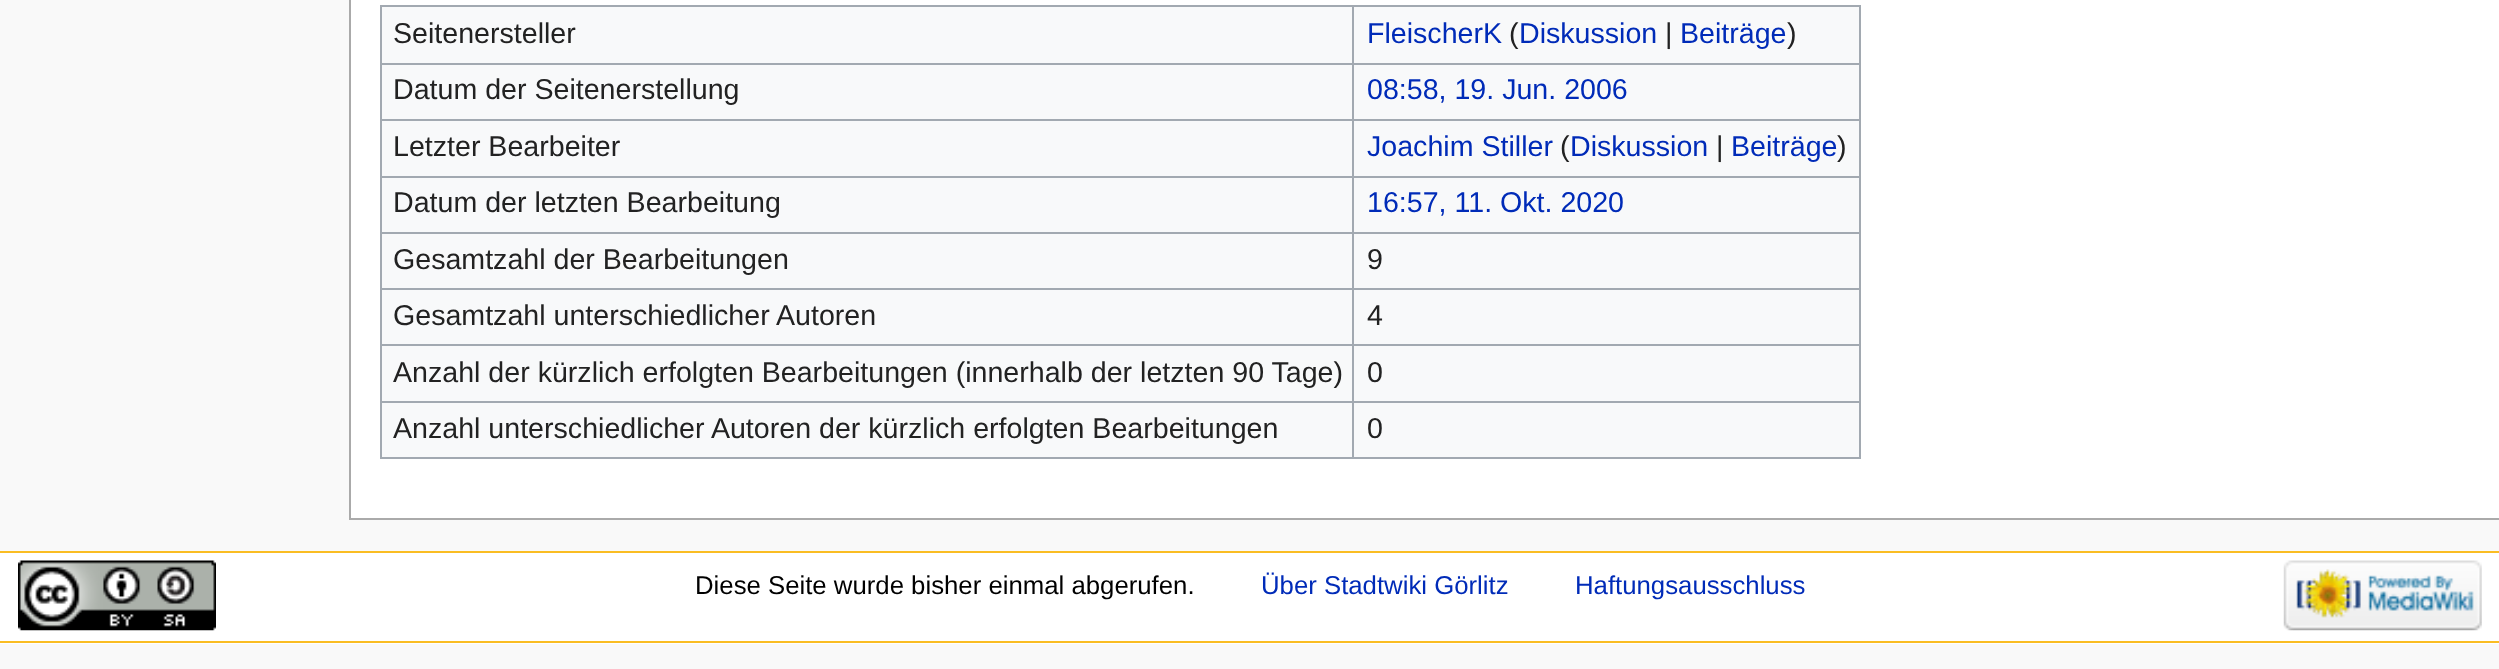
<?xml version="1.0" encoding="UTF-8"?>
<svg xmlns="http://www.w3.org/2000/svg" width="2499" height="669">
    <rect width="100%" height="100%" fill="#F9F9F9"/>
    <rect x="351" y="0" width="2148" height="518" fill="#FFFFFF"/>
    <rect x="349" y="518" width="2150" height="2" fill="#AAAAAA"/>
    <rect x="349" y="0" width="2" height="520" fill="#AAAAAA"/>
    <rect x="382" y="7" width="1477" height="450" fill="#F8F9FA"/>
    <rect x="380" y="5" width="1481" height="2" fill="#A2A9B1"/>
    <rect x="1859" y="5" width="2" height="454" fill="#A2A9B1"/>
    <rect x="380" y="457" width="1481" height="2" fill="#A2A9B1"/>
    <rect x="380" y="5" width="2" height="454" fill="#A2A9B1"/>
    <text x="393" y="43" font-family="Liberation Sans" font-size="28.6" fill="#222222">Seitenersteller</text>
    <rect x="1352" y="63" width="509" height="2" fill="#A2A9B1"/>
    <rect x="1352" y="119" width="509" height="2" fill="#A2A9B1"/>
    <rect x="1352" y="176" width="509" height="2" fill="#A2A9B1"/>
    <rect x="1352" y="232" width="509" height="2" fill="#A2A9B1"/>
    <rect x="1352" y="288" width="509" height="2" fill="#A2A9B1"/>
    <rect x="1352" y="344" width="509" height="2" fill="#A2A9B1"/>
    <rect x="1352" y="401" width="509" height="2" fill="#A2A9B1"/>
    <rect x="1352" y="401" width="2" height="58" fill="#A2A9B1"/>
    <rect x="380" y="401" width="975" height="2" fill="#A2A9B1"/>
    <rect x="1352" y="344" width="2" height="59" fill="#A2A9B1"/>
    <rect x="380" y="344" width="975" height="2" fill="#A2A9B1"/>
    <rect x="1352" y="288" width="2" height="59" fill="#A2A9B1"/>
    <rect x="380" y="288" width="975" height="2" fill="#A2A9B1"/>
    <rect x="1352" y="232" width="2" height="58" fill="#A2A9B1"/>
    <rect x="380" y="232" width="975" height="2" fill="#A2A9B1"/>
    <rect x="1352" y="176" width="2" height="58" fill="#A2A9B1"/>
    <rect x="380" y="176" width="975" height="2" fill="#A2A9B1"/>
    <rect x="1352" y="119" width="2" height="59" fill="#A2A9B1"/>
    <rect x="380" y="119" width="975" height="2" fill="#A2A9B1"/>
    <rect x="1352" y="63" width="2" height="59" fill="#A2A9B1"/>
    <rect x="380" y="63" width="975" height="2" fill="#A2A9B1"/>
    <rect x="1352" y="5" width="2" height="60" fill="#A2A9B1"/>
    <text x="1367" y="43" font-family="Liberation Sans" font-size="28.6" fill="#002BB8">FleischerK</text>
    <text x="1509" y="43" font-family="Liberation Sans" font-size="28.6" fill="#222222">(</text>
    <text x="1519" y="43" font-family="Liberation Sans" font-size="28.6" fill="#002BB8">Diskussion</text>
    <text x="1665" y="43" font-family="Liberation Sans" font-size="28.6" fill="#222222">|</text>
    <text x="1680" y="43" font-family="Liberation Sans" font-size="28.6" fill="#002BB8">Beiträge</text>
    <text x="1787" y="43" font-family="Liberation Sans" font-size="28.6" fill="#222222">)</text>
    <text x="393" y="99" font-family="Liberation Sans" font-size="28.6" fill="#222222">Datum der Seitenerstellung</text>
    <text x="1367" y="99" font-family="Liberation Sans" font-size="28.6" fill="#002BB8">08:58, 19. Jun. 2006</text>
    <text x="393" y="156" font-family="Liberation Sans" font-size="28.6" fill="#222222">Letzter Bearbeiter</text>
    <text x="1367" y="156" font-family="Liberation Sans" font-size="28.6" fill="#002BB8">Joachim Stiller</text>
    <text x="1560" y="156" font-family="Liberation Sans" font-size="28.6" fill="#222222">(</text>
    <text x="1570" y="156" font-family="Liberation Sans" font-size="28.6" fill="#002BB8">Diskussion</text>
    <text x="1716" y="156" font-family="Liberation Sans" font-size="28.6" fill="#222222">|</text>
    <text x="1731" y="156" font-family="Liberation Sans" font-size="28.6" fill="#002BB8">Beiträge</text>
    <text x="1837" y="156" font-family="Liberation Sans" font-size="28.6" fill="#222222">)</text>
    <text x="393" y="212" font-family="Liberation Sans" font-size="28.6" fill="#222222">Datum der letzten Bearbeitung</text>
    <text x="1367" y="212" font-family="Liberation Sans" font-size="28.6" fill="#002BB8">16:57, 11. Okt. 2020</text>
    <text x="393" y="269" font-family="Liberation Sans" font-size="28.6" fill="#222222">Gesamtzahl der Bearbeitungen</text>
    <text x="1367" y="269" font-family="Liberation Sans" font-size="28.6" fill="#222222">9</text>
    <text x="393" y="325" font-family="Liberation Sans" font-size="28.6" fill="#222222">Gesamtzahl unterschiedlicher Autoren</text>
    <text x="1367" y="325" font-family="Liberation Sans" font-size="28.6" fill="#222222">4</text>
    <text x="393" y="382" font-family="Liberation Sans" font-size="28.6" fill="#222222">Anzahl der kürzlich erfolgten Bearbeitungen (innerhalb der letzten 90 Tage)</text>
    <text x="1367" y="382" font-family="Liberation Sans" font-size="28.6" fill="#222222">0</text>
    <text x="393" y="438" font-family="Liberation Sans" font-size="28.6" fill="#222222">Anzahl unterschiedlicher Autoren der kürzlich erfolgten Bearbeitungen</text>
    <text x="1367" y="438" font-family="Liberation Sans" font-size="28.6" fill="#222222">0</text>
    <rect x="0" y="553" width="2499" height="91" fill="#FFFFFF"/>
    <rect x="0" y="551" width="2499" height="2" fill="#FABD23"/>
    <rect x="0" y="641" width="2499" height="2" fill="#FABD23"/>
    <image x="18" y="560" width="198" height="71" href="img_01.png"/>
    <text x="695" y="594" font-family="Liberation Sans" font-size="25.75" fill="#000000">Diese Seite wurde bisher einmal abgerufen.</text>
    <text x="1261" y="594" font-family="Liberation Sans" font-size="25.75" fill="#002BB8">Über Stadtwiki Görlitz</text>
    <text x="1575" y="594" font-family="Liberation Sans" font-size="25.75" fill="#002BB8">Haftungsausschluss</text>
    <image x="2283" y="560" width="199" height="71" href="img_02.png"/>
</svg>
